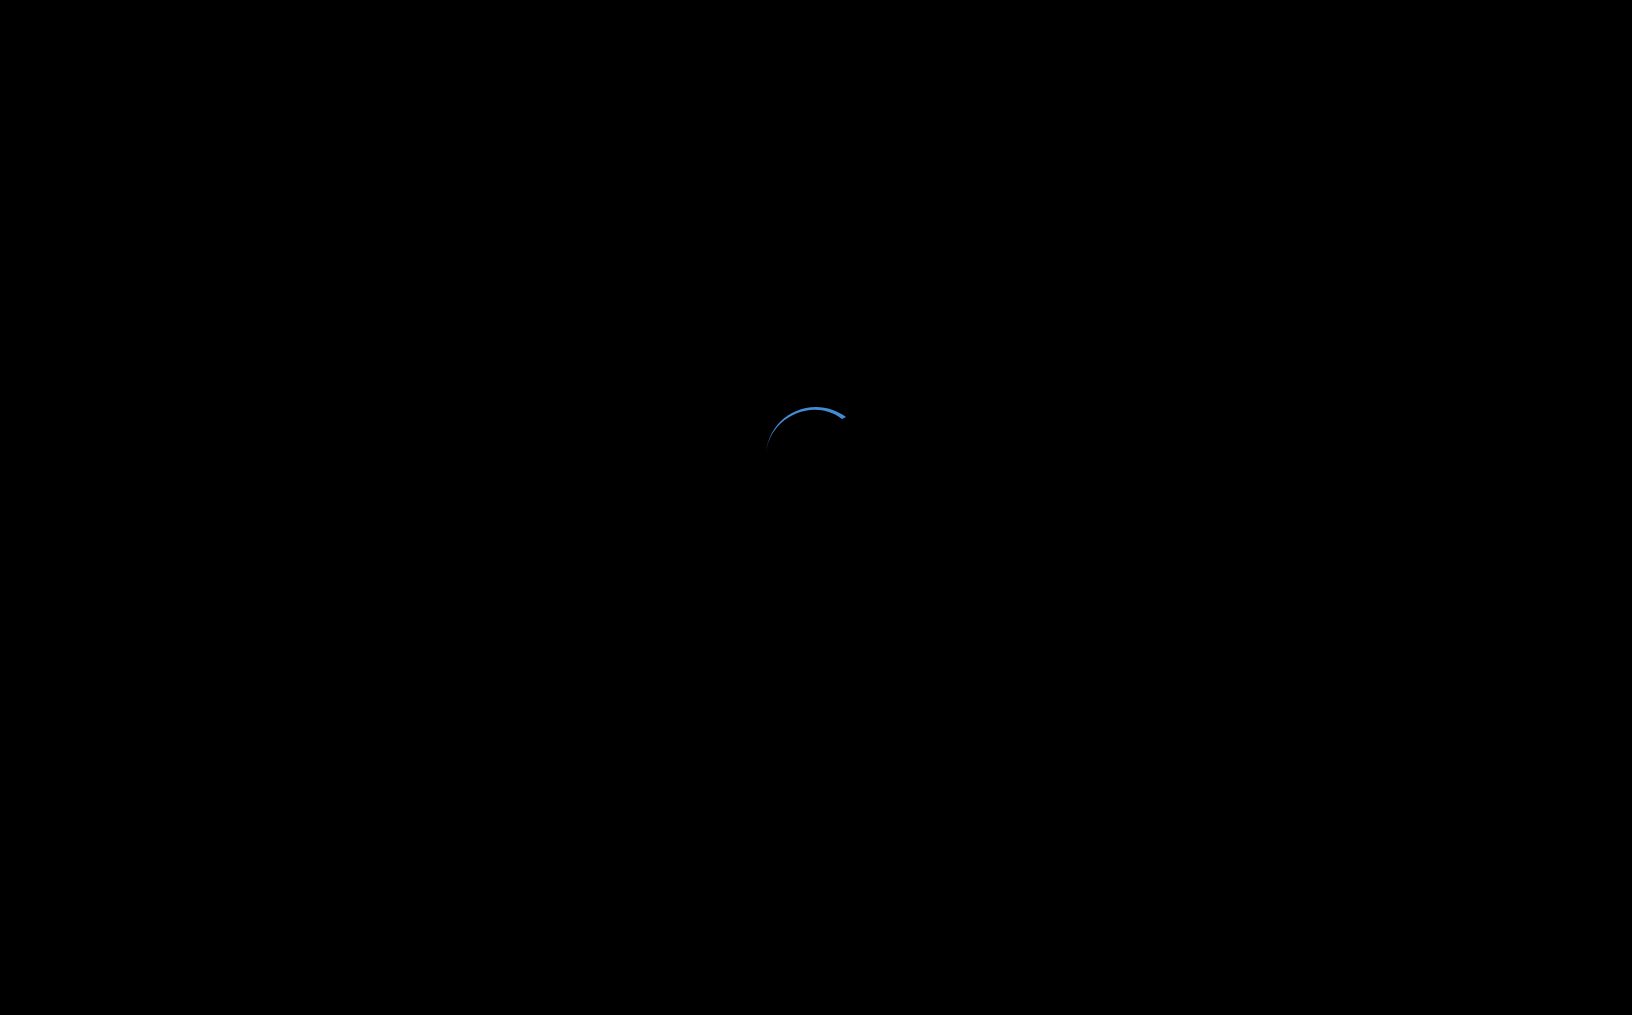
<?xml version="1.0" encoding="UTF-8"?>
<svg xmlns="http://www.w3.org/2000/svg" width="1632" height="1015">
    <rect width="100%" height="100%" fill="#000000"/>
    <path d="M 816 407 C 788 407 766 429 766 457 C 766 419 812 396 842 419 L 846 417 C 838 411 827 407 816 407 Z" fill="#448BD6"/>
</svg>
